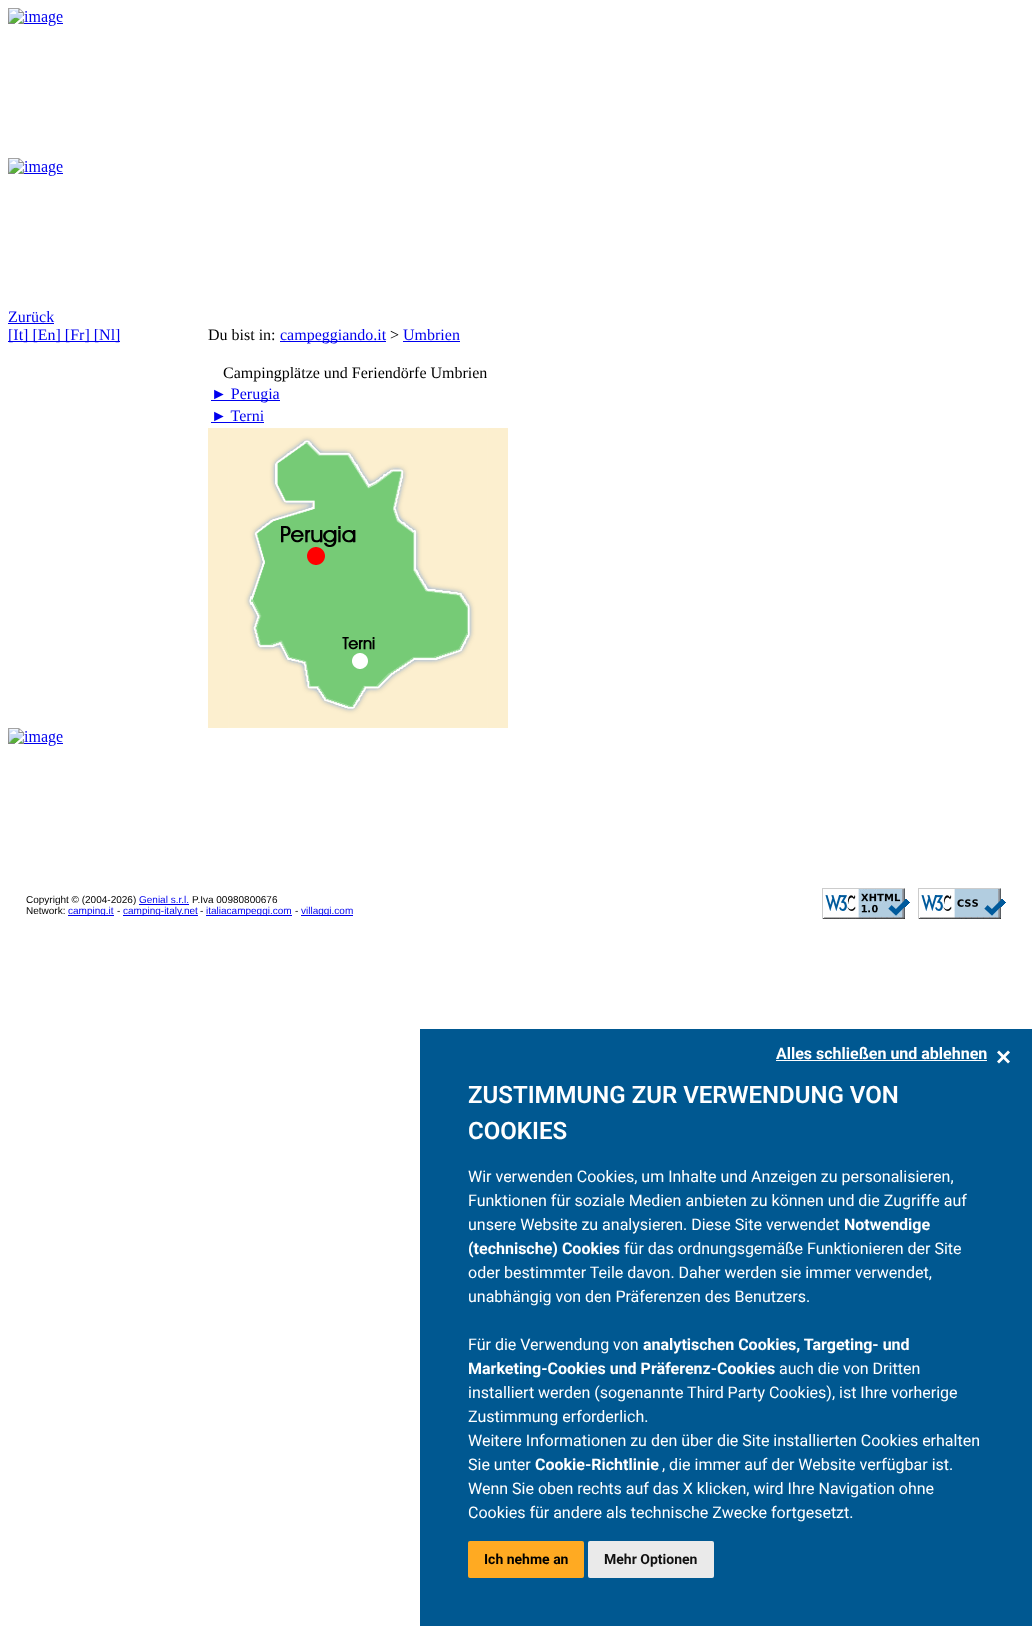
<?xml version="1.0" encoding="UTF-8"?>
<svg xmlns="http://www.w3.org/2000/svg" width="1032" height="1626">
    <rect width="100%" height="100%" fill="#FFFFFF"/>
    <image x="8" y="8" width="55" height="18" href="img_01.png"/>
    <image x="8" y="158" width="55" height="18" href="img_01.png"/>
    <text x="8" y="322" font-family="Liberation Serif" font-size="16" fill="#0000EE">Zurück</text>
    <rect x="8" y="323" width="46" height="1" fill="#0000EE"/>
    <rect x="8" y="341" width="112" height="1" fill="#0000EE"/>
    <text x="8" y="340" font-family="Liberation Serif" font-size="16" fill="#0000EE">[It] [En] [Fr] [Nl]</text>
    <text x="208" y="340" font-family="Liberation Serif" font-size="16" fill="#000000">Du bist in:</text>
    <rect x="280" y="341" width="106" height="1" fill="#0000EE"/>
    <text x="280" y="340" font-family="Liberation Serif" font-size="16" fill="#0000EE">campeggiando.it</text>
    <text x="390" y="340" font-family="Liberation Serif" font-size="16" fill="#000000">&gt;</text>
    <text x="403" y="340" font-family="Liberation Serif" font-size="16" fill="#0000EE">Umbrien</text>
    <rect x="403" y="341" width="57" height="1" fill="#0000EE"/>
    <text x="223" y="378" font-family="Liberation Serif" font-size="16" fill="#000000">Campingplätze und Feriendörfe Umbrien</text>
    <rect x="211" y="400" width="69" height="1" fill="#0000EE"/>
    <text font-family="Liberation Serif" font-size="16" fill="#0000EE">
        <tspan x="211" y="399">► Perugia</tspan>
        <tspan x="211" y="421">► Terni</tspan>
    </text>
    <rect x="211" y="422" width="53" height="1" fill="#0000EE"/>
    <image x="208" y="428" width="300" height="300" href="img_02.png"/>
    <image x="8" y="728" width="55" height="18" href="img_01.png"/>
    <text x="26" y="903" font-family="Liberation Sans" font-size="10" fill="#000000">Copyright © (2004-2026)</text>
    <text x="139" y="903" font-family="Liberation Sans" font-size="10" fill="#0000EE">Genial s.r.l.</text>
    <rect x="139" y="904" width="50" height="1" fill="#0000EE"/>
    <text x="192" y="903" font-family="Liberation Sans" font-size="10" fill="#000000">P.Iva 00980800676</text>
    <text x="26" y="914" font-family="Liberation Sans" font-size="10" fill="#000000">Network:</text>
    <rect x="68" y="915" width="46" height="1" fill="#0000EE"/>
    <text x="68" y="914" font-family="Liberation Sans" font-size="10" fill="#0000EE">camping.it</text>
    <text x="117" y="914" font-family="Liberation Sans" font-size="10" fill="#000000">-</text>
    <rect x="123" y="915" width="75" height="1" fill="#0000EE"/>
    <text x="123" y="914" font-family="Liberation Sans" font-size="10" fill="#0000EE">camping-italy.net</text>
    <text x="200" y="914" font-family="Liberation Sans" font-size="10" fill="#000000">-</text>
    <rect x="206" y="915" width="86" height="1" fill="#0000EE"/>
    <text x="206" y="914" font-family="Liberation Sans" font-size="10" fill="#0000EE">italiacampeggi.com</text>
    <text x="295" y="914" font-family="Liberation Sans" font-size="10" fill="#000000">-</text>
    <rect x="301" y="915" width="52" height="1" fill="#0000EE"/>
    <text x="301" y="914" font-family="Liberation Sans" font-size="10" fill="#0000EE">villaggi.com</text>
    <image x="822" y="888" width="88" height="31" href="img_03.png"/>
    <image x="918" y="888" width="88" height="31" href="img_04.png"/>
    <rect x="420" y="1029" width="612" height="597" fill="#005891"/>
    <text x="776" y="1059" font-family="Roboto" font-size="16" font-weight="700" fill="#FFFFFF">Alles schließen und ablehnen</text>
    <rect x="776" y="1060" width="211" height="1" fill="#FFFFFF"/>
    <path d="M 1008 1050.5 L 1010 1052.5 L 999 1063.5 L 997 1061.5 Z" fill="#FFFFFF"/>
    <path d="M 997 1052.5 L 999 1050.5 L 1010 1061.5 L 1008 1063.5 Z" fill="#FFFFFF"/>
    <text font-family="Roboto" font-size="24" font-weight="600" fill="#FFFFFF">
        <tspan x="468" y="1103">ZUSTIMMUNG ZUR VERWENDUNG VON</tspan>
        <tspan x="468" y="1139">COOKIES</tspan>
    </text>
    <text font-family="Roboto" font-size="16" fill="#FFFFFF">
        <tspan x="468" y="1182">Wir verwenden Cookies, um Inhalte und Anzeigen zu personalisieren,</tspan>
        <tspan x="468" y="1206">Funktionen für soziale Medien anbieten zu können und die Zugriffe auf</tspan>
        <tspan x="468" y="1230">unsere Website zu analysieren. Diese Site verwendet</tspan>
    </text>
    <text x="844" y="1230" font-family="Roboto" font-size="16" font-weight="700" fill="#FFFFFF">Notwendige</text>
    <text x="468" y="1254" font-family="Roboto" font-size="16" font-weight="700" fill="#FFFFFF">(technische) Cookies</text>
    <text x="624" y="1254" font-family="Roboto" font-size="16" fill="#FFFFFF">für das ordnungsgemäße Funktionieren der Site</text>
    <text font-family="Roboto" font-size="16" fill="#FFFFFF">
        <tspan x="468" y="1278">oder bestimmter Teile davon. Daher werden sie immer verwendet,</tspan>
        <tspan x="468" y="1302">unabhängig von den Präferenzen des Benutzers.</tspan>
    </text>
    <text x="468" y="1350" font-family="Roboto" font-size="16" fill="#FFFFFF">Für die Verwendung von</text>
    <text x="643" y="1350" font-family="Roboto" font-size="16" font-weight="700" fill="#FFFFFF">analytischen Cookies, Targeting- und</text>
    <text x="468" y="1374" font-family="Roboto" font-size="16" font-weight="700" fill="#FFFFFF">Marketing-Cookies und Präferenz-Cookies</text>
    <text x="779" y="1374" font-family="Roboto" font-size="16" fill="#FFFFFF">auch die von Dritten</text>
    <text font-family="Roboto" font-size="16" fill="#FFFFFF">
        <tspan x="468" y="1398">installiert werden (sogenannte Third Party Cookies), ist Ihre vorherige</tspan>
        <tspan x="468" y="1422">Zustimmung erforderlich.</tspan>
        <tspan x="468" y="1446">Weitere Informationen zu den über die Site installierten Cookies erhalten</tspan>
        <tspan x="468" y="1470">Sie unter</tspan>
    </text>
    <text x="535" y="1470" font-family="Roboto" font-size="16" font-weight="700" fill="#FFFFFF">Cookie-Richtlinie</text>
    <text x="662" y="1470" font-family="Roboto" font-size="16" fill="#FFFFFF">, die immer auf der Website verfügbar ist.</text>
    <text font-family="Roboto" font-size="16" fill="#FFFFFF">
        <tspan x="468" y="1494">Wenn Sie oben rechts auf das X klicken, wird Ihre Navigation ohne</tspan>
        <tspan x="468" y="1518">Cookies für andere als technische Zwecke fortgesetzt.</tspan>
    </text>
    <rect x="468" y="1541" width="116" height="37" rx="2" fill="#FFAA22"/>
    <text x="484" y="1564" font-family="Roboto" font-size="14" font-weight="700" fill="#000000">Ich nehme an</text>
    <rect x="588" y="1541" width="126" height="37" rx="2" fill="#EAEAEA"/>
    <text x="604" y="1564" font-family="Roboto" font-size="14" font-weight="700" fill="#111111">Mehr Optionen</text>
</svg>
